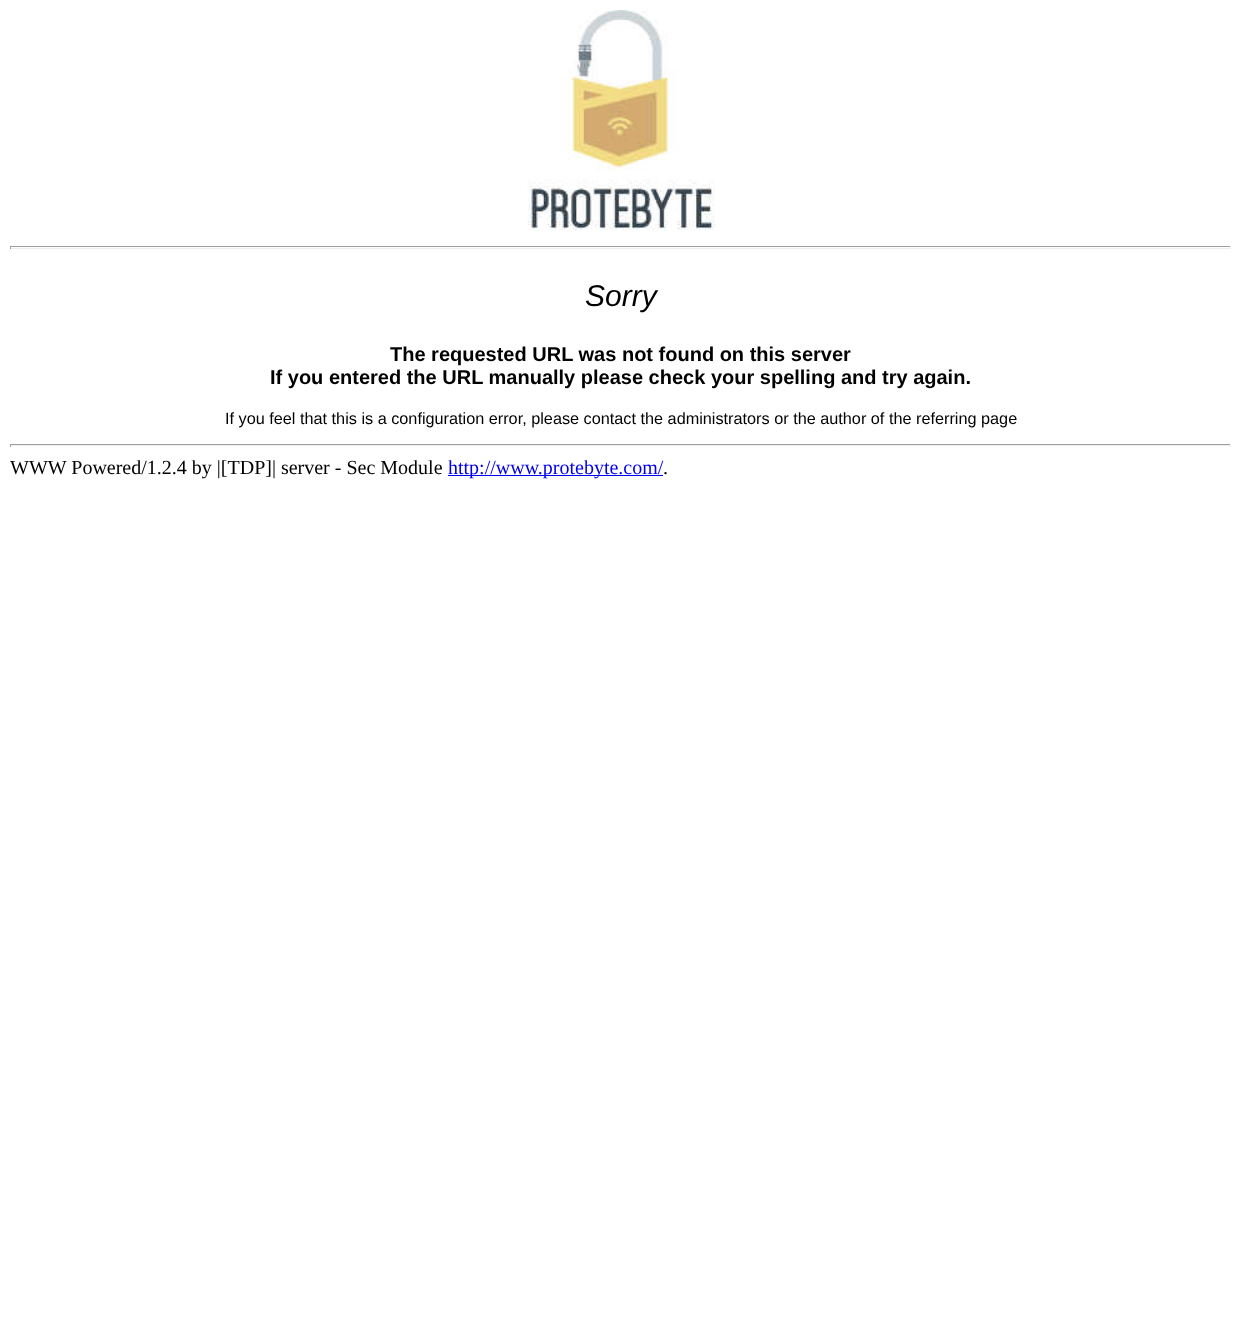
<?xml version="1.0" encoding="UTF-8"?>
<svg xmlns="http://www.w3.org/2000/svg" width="1241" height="1335">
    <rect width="100%" height="100%" fill="#FFFFFF"/>
    <image x="527" y="10" width="188" height="221" href="img_01.png"/>
    <rect x="10" y="246" width="1221" height="1" fill="#9F9F9F"/>
    <rect x="1230" y="246" width="1" height="3" fill="#EEEEEE"/>
    <rect x="10" y="248" width="1221" height="1" fill="#EEEEEE"/>
    <rect x="10" y="246" width="1" height="3" fill="#9F9F9F"/>
    <text x="585" y="306" font-family="Liberation Sans" font-size="30" font-style="italic" fill="#000000">Sorry</text>
    <text x="390" y="361" font-family="Liberation Sans" font-size="20" font-weight="700" fill="#000000">The requested URL was not found on this server</text>
    <text x="270" y="384" font-family="Liberation Sans" font-size="20" font-weight="700" fill="#000000">If you entered the URL manually please check your spelling and try again.</text>
    <text x="225" y="424" font-family="Liberation Sans" font-size="16.25" fill="#000000">If you feel that this is a configuration error, please contact the administrators or the author of the referring page</text>
    <rect x="10" y="444" width="1221" height="1" fill="#9F9F9F"/>
    <rect x="1230" y="444" width="1" height="3" fill="#EEEEEE"/>
    <rect x="10" y="445" width="1221" height="1" fill="#EEEEEE"/>
    <rect x="10" y="444" width="1" height="3" fill="#9F9F9F"/>
    <text x="10" y="474" font-family="Liberation Serif" font-size="20" fill="#000000">WWW Powered/1.2.4 by |[TDP]| server - Sec Module</text>
    <rect x="448" y="475" width="215" height="1" fill="#0000EE"/>
    <text x="448" y="474" font-family="Liberation Serif" font-size="20" fill="#0000EE">http://www.protebyte.com/</text>
    <text x="663" y="474" font-family="Liberation Serif" font-size="20" fill="#000000">.</text>
</svg>
